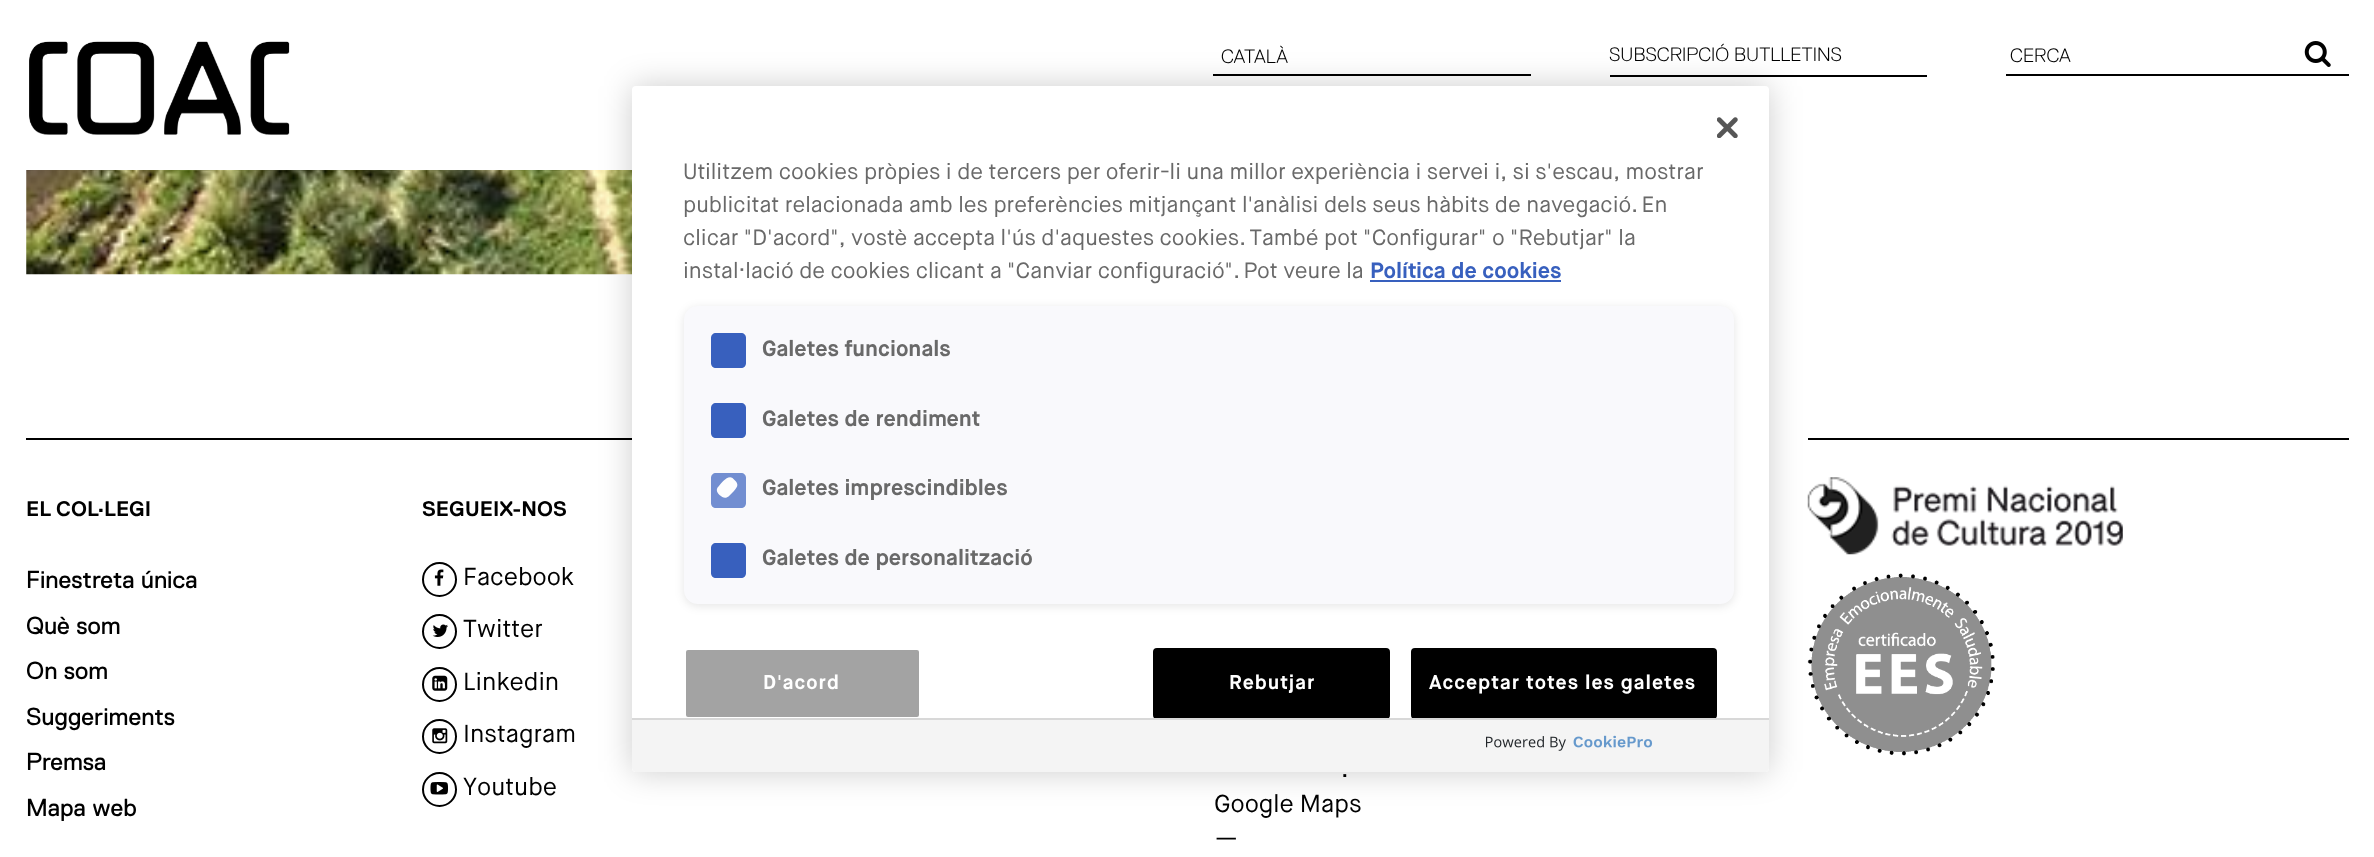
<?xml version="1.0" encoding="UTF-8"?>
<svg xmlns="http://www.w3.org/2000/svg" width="2374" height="857">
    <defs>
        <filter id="blur1" x="-50%" y="-200%" width="200%" height="500%"><feGaussianBlur stdDeviation="16"/></filter>
        <filter id="blur2" x="-50%" y="-200%" width="200%" height="500%"><feGaussianBlur stdDeviation="5"/></filter>
    </defs>
    <rect width="100%" height="100%" fill="#FFFFFF"/>
    <image x="29" y="41" width="261" height="94" href="img_01.png"/>
    <rect x="1213" y="74" width="318" height="2" fill="#000000"/>
    <text x="1221" y="63" font-family="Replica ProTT" font-size="19.25" font-weight="300" fill="#000000">CATALÀ</text>
    <rect x="1610" y="75" width="317" height="2" fill="#000000"/>
    <text x="1609" y="61" font-family="Replica ProTT" font-size="19.25" font-weight="300" fill="#000000">SUBSCRIPCIÓ BUTLLETINS</text>
    <rect x="2006" y="74" width="343" height="2" fill="#000000"/>
    <text x="2010" y="62" font-family="Replica ProTT" font-size="19.25" font-weight="300" fill="#000000">CERCA</text>
    <image x="2304" y="41" width="27" height="26" href="img_02.png"/>
    <image x="26" y="170" width="606" height="105" href="img_03.png"/>
    <rect x="26" y="438" width="606" height="2" fill="#000000"/>
    <rect x="1808" y="438" width="541" height="2" fill="#000000"/>
    <image x="1807" y="477" width="316" height="78" href="img_11.png"/>
    <image x="1807" y="573" width="188" height="183" href="img_12.png"/>
    <rect x="632" y="86" width="1137" height="686" rx="4" fill="#000000" fill-opacity="0.2" filter="url(#blur1)"/>
    <rect x="632" y="86" width="1137" height="686" rx="4" fill="#FFFFFF"/>
    <image x="1717" y="117" width="21" height="21" href="img_04.png"/>
    <text font-family="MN" font-size="22.05" fill="#696969">
        <tspan x="683" y="179">Utilitzem cookies pròpies i de tercers per oferir-li una millor experiència i servei i, si s'escau, mostrar</tspan>
        <tspan x="683" y="212">publicitat relacionada amb les preferències mitjançant l'anàlisi dels seus hàbits de navegació. En</tspan>
        <tspan x="683" y="245">clicar "D'acord", vostè accepta l'ús d'aquestes cookies. També pot "Configurar" o "Rebutjar" la</tspan>
        <tspan x="683" y="278">instal·lació de cookies clicant a "Canviar configuració". Pot veure la</tspan>
    </text>
    <text x="1370" y="278" font-family="MN" font-size="22.05" font-weight="700" fill="#3860BE">Política de cookies</text>
    <rect x="1370" y="280" width="191" height="2" fill="#3860BE"/>
    <rect x="684" y="308" width="1050" height="298" rx="14" fill="#000000" fill-opacity="0.1" filter="url(#blur2)"/>
    <rect x="684" y="306" width="1050" height="298" rx="14" fill="#F9F9FC"/>
    <path d="M 716 333 H 741 C 744 333 746 335 746 338 V 363 C 746 366 744 368 741 368 H 716 C 713 368 711 366 711 363 V 338 C 711 335 713 333 716 333 Z" fill="#3860BE"/>
    <text x="762" y="356" font-family="MN" font-size="22.05" font-weight="700" fill="#696969">Galetes funcionals</text>
    <path d="M 716 403 H 741 C 744 403 746 405 746 408 V 433 C 746 436 744 438 741 438 H 716 C 713 438 711 436 711 433 V 408 C 711 405 713 403 716 403 Z" fill="#3860BE"/>
    <text x="762" y="426" font-family="MN" font-size="22.05" font-weight="700" fill="#696969">Galetes de rendiment</text>
    <path d="M 716 473 H 741 C 744 473 746 475 746 478 V 503 C 746 506 744 508 741 508 H 716 C 713 508 711 506 711 503 V 478 C 711 475 713 473 716 473 Z" fill="#728ED1"/>
    <path d="M 718.5 486.5 C 721.5 483.5 727 475 732.5 478 L 736 481.5 C 738.5 485 737.5 487 733.5 491.5 L 728.5 496.5 C 725 499 722.5 497.5 719.5 495 C 717 492.5 715.5 489.5 718.5 486.5 Z" fill="#FDFDFE"/>
    <text x="762" y="495" font-family="MN" font-size="22.05" font-weight="700" fill="#696969">Galetes imprescindibles</text>
    <path d="M 716 543 H 741 C 744 543 746 545 746 548 V 573 C 746 576 744 578 741 578 H 716 C 713 578 711 576 711 573 V 548 C 711 545 713 543 716 543 Z" fill="#3860BE"/>
    <text x="762" y="565" font-family="MN" font-size="22.05" font-weight="700" fill="#696969">Galetes de personalització</text>
    <rect x="685" y="649" width="235" height="69" rx="3" fill="#A3A3A3" stroke="#FFFFFF" stroke-width="2"/>
    <text x="763" y="689" font-family="MN" font-size="19.9" font-weight="700" letter-spacing="1" fill="#FFFFFF">D'acord</text>
    <rect x="1154" y="649" width="235" height="69" rx="3" fill="#000000" stroke="#000000" stroke-width="2"/>
    <text x="1229" y="689" font-family="MN" font-size="19.9" font-weight="700" letter-spacing="1" fill="#FFFFFF">Rebutjar</text>
    <rect x="1412" y="649" width="304" height="69" rx="3" fill="#000000" stroke="#000000" stroke-width="2"/>
    <text x="1429" y="689" font-family="MN" font-size="19.9" font-weight="700" letter-spacing="1" fill="#FFFFFF">Acceptar totes les galetes</text>
    <path d="M 632 718 H 1769 V 768 C 1769 770 1767 772 1765 772 H 636 C 634 772 632 770 632 768 Z" fill="#F4F4F4"/>
    <rect x="632" y="718" width="1137" height="2" fill="#D8D8D8"/>
    <image x="1486" y="735" width="167" height="16" href="img_05.png"/>
    <text x="26" y="516" font-family="Replica ProTT" font-size="21" font-weight="700" fill="#000000">EL COL·LEGI</text>
    <text font-family="Replica ProTT" font-size="24.5" fill="#000000">
        <tspan x="26" y="588">Finestreta única</tspan>
        <tspan x="26" y="634">Què som</tspan>
        <tspan x="26" y="679">On som</tspan>
        <tspan x="26" y="725">Suggeriments</tspan>
        <tspan x="26" y="770">Premsa</tspan>
        <tspan x="26" y="816">Mapa web</tspan>
    </text>
    <text x="422" y="516" font-family="Replica ProTT" font-size="21" font-weight="700" fill="#000000">SEGUEIX-NOS</text>
    <circle cx="439.5" cy="579.5" r="16.5" fill="none" stroke="#000000" stroke-width="2"/>
    <image x="434" y="569" width="10" height="17" href="img_06.png"/>
    <text x="463" y="585" font-family="MN" font-size="24.5" fill="#000000">Facebook</text>
    <circle cx="439.5" cy="631.5" r="16.5" fill="none" stroke="#000000" stroke-width="2"/>
    <image x="432" y="624" width="16" height="13" href="img_07.png"/>
    <text x="463" y="637" font-family="MN" font-size="24.5" fill="#000000">Twitter</text>
    <circle cx="439.5" cy="684.5" r="16.5" fill="none" stroke="#000000" stroke-width="2"/>
    <image x="432" y="675" width="16" height="16" href="img_08.png"/>
    <text x="463" y="690" font-family="MN" font-size="24.5" fill="#000000">Linkedin</text>
    <circle cx="439.5" cy="736.5" r="16.5" fill="none" stroke="#000000" stroke-width="2"/>
    <image x="432" y="728" width="16" height="16" href="img_09.png"/>
    <text x="463" y="742" font-family="MN" font-size="24.5" fill="#000000">Instagram</text>
    <circle cx="439.5" cy="789.5" r="16.5" fill="none" stroke="#000000" stroke-width="2"/>
    <image x="430" y="782" width="18" height="13" href="img_10.png"/>
    <text x="463" y="795" font-family="MN" font-size="24.5" fill="#000000">Youtube</text>
    <text x="1341" y="777" font-family="MN" font-size="24.5" fill="#000000">.</text>
    <text font-family="MN" font-size="24.5" fill="#000000">
        <tspan x="1214" y="812">Google Maps</tspan>
        <tspan x="1214" y="847">—</tspan>
    </text>
</svg>
